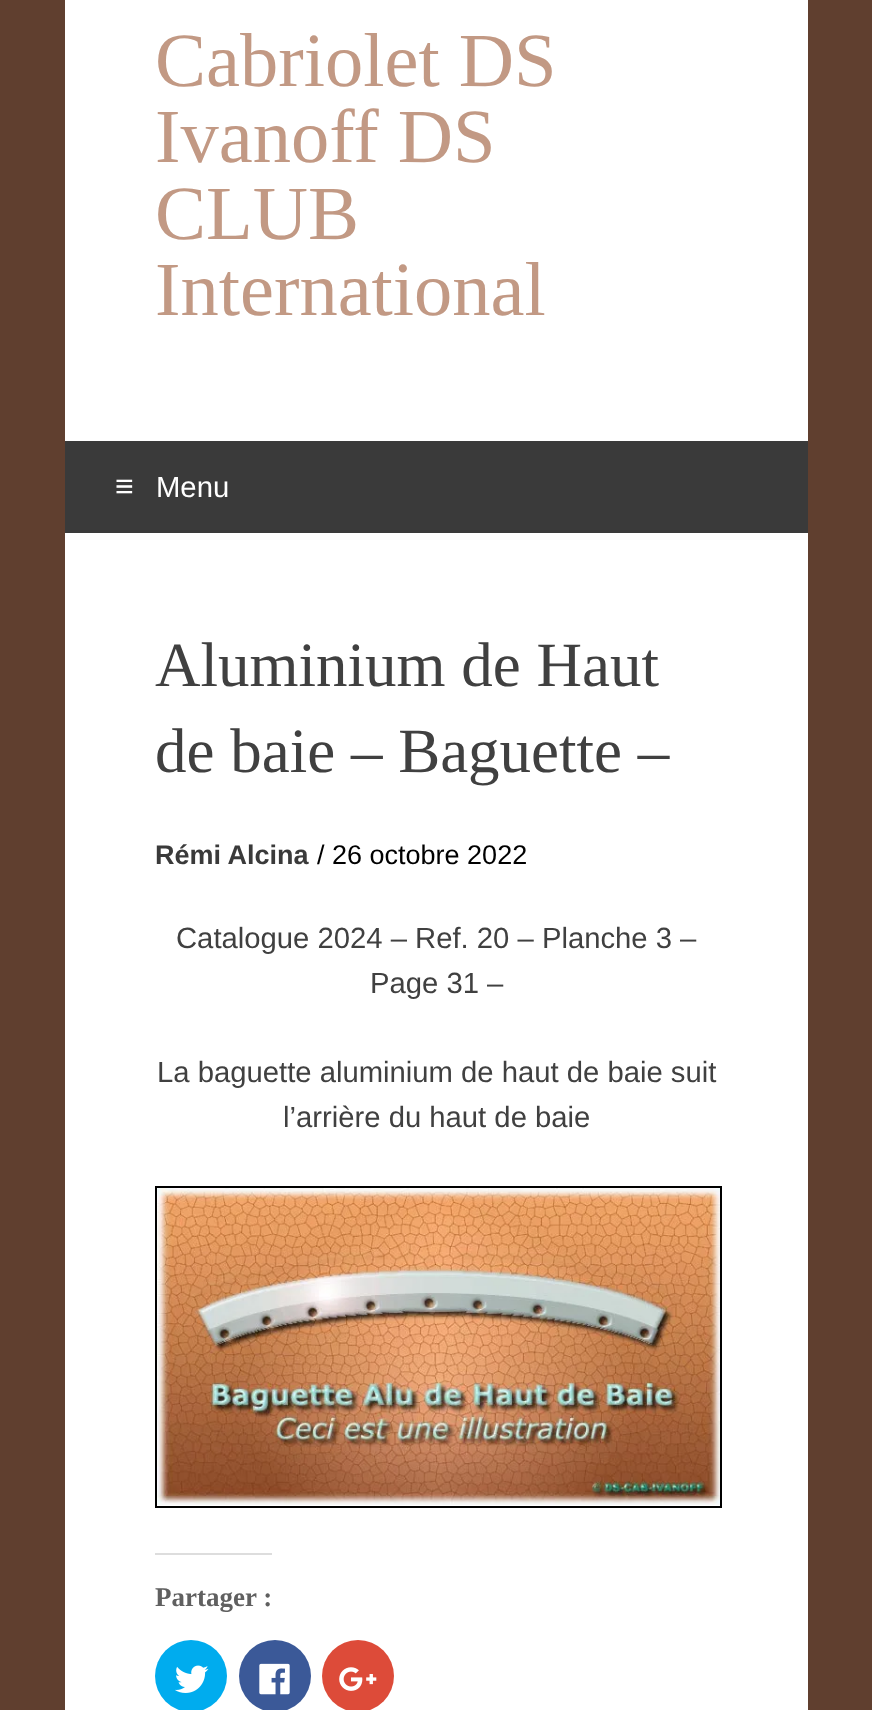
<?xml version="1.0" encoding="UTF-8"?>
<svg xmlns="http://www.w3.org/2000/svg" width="872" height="1710">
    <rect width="100%" height="100%" fill="#603F2F"/>
    <rect x="65" y="0" width="743" height="1710" fill="#FFFFFF"/>
    <text font-family="Liberation Serif" font-size="76.5" fill="#C29984">
        <tspan x="155" y="86">Cabriolet DS</tspan>
        <tspan x="155" y="162">Ivanoff DS</tspan>
        <tspan x="155" y="239">CLUB</tspan>
        <tspan x="155" y="315">International</tspan>
    </text>
    <rect x="65" y="441" width="743" height="92" fill="#3A3A3A"/>
    <text x="115" y="497" font-family="Liberation Sans" font-size="32" fill="#FFFFFF">≡</text>
    <text x="156" y="497" font-family="Liberation Sans" font-size="29.25" fill="#FFFFFF">Menu</text>
    <text font-family="Liberation Serif" font-size="63" fill="#404040">
        <tspan x="155" y="686">Aluminium de Haut</tspan>
        <tspan x="155" y="772">de baie – Baguette –</tspan>
    </text>
    <text x="155" y="864" font-family="Liberation Sans" font-size="27" font-weight="700" fill="#3A3A3A">Rémi Alcina</text>
    <text x="317" y="864" font-family="Liberation Sans" font-size="27" fill="#000000">/ 26 octobre 2022</text>
    <text x="176" y="948" font-family="Liberation Sans" font-size="29.25" fill="#404040">Catalogue 2024 – Ref. 20 – Planche 3 –</text>
    <text x="370" y="993" font-family="Liberation Sans" font-size="29.25" fill="#404040">Page 31 –</text>
    <text x="157" y="1082" font-family="Liberation Sans" font-size="29.25" fill="#404040">La baguette aluminium de haut de baie suit</text>
    <text x="283" y="1127" font-family="Liberation Sans" font-size="29.25" fill="#404040">l’arrière du haut de baie</text>
    <rect x="156" y="1187" width="565" height="320" fill="none" stroke="#000000" stroke-width="2"/>
    <image x="157" y="1188" width="563" height="317" href="img_01.png"/>
    <rect x="155" y="1553" width="117" height="2" fill="#DDDDDD"/>
    <text x="155" y="1606" font-family="Liberation Serif" font-size="27" font-weight="700" fill="#606060">Partager :</text>
    <circle cx="191" cy="1676" r="36" fill="#00ACEE"/>
    <image x="175" y="1665" width="34" height="28" href="img_02.png"/>
    <circle cx="275" cy="1676" r="36" fill="#3B5998"/>
    <image x="259" y="1663" width="31" height="32" href="img_03.png"/>
    <circle cx="358" cy="1676" r="36" fill="#DD4B39"/>
    <image x="339" y="1667" width="38" height="24" href="img_04.png"/>
</svg>
